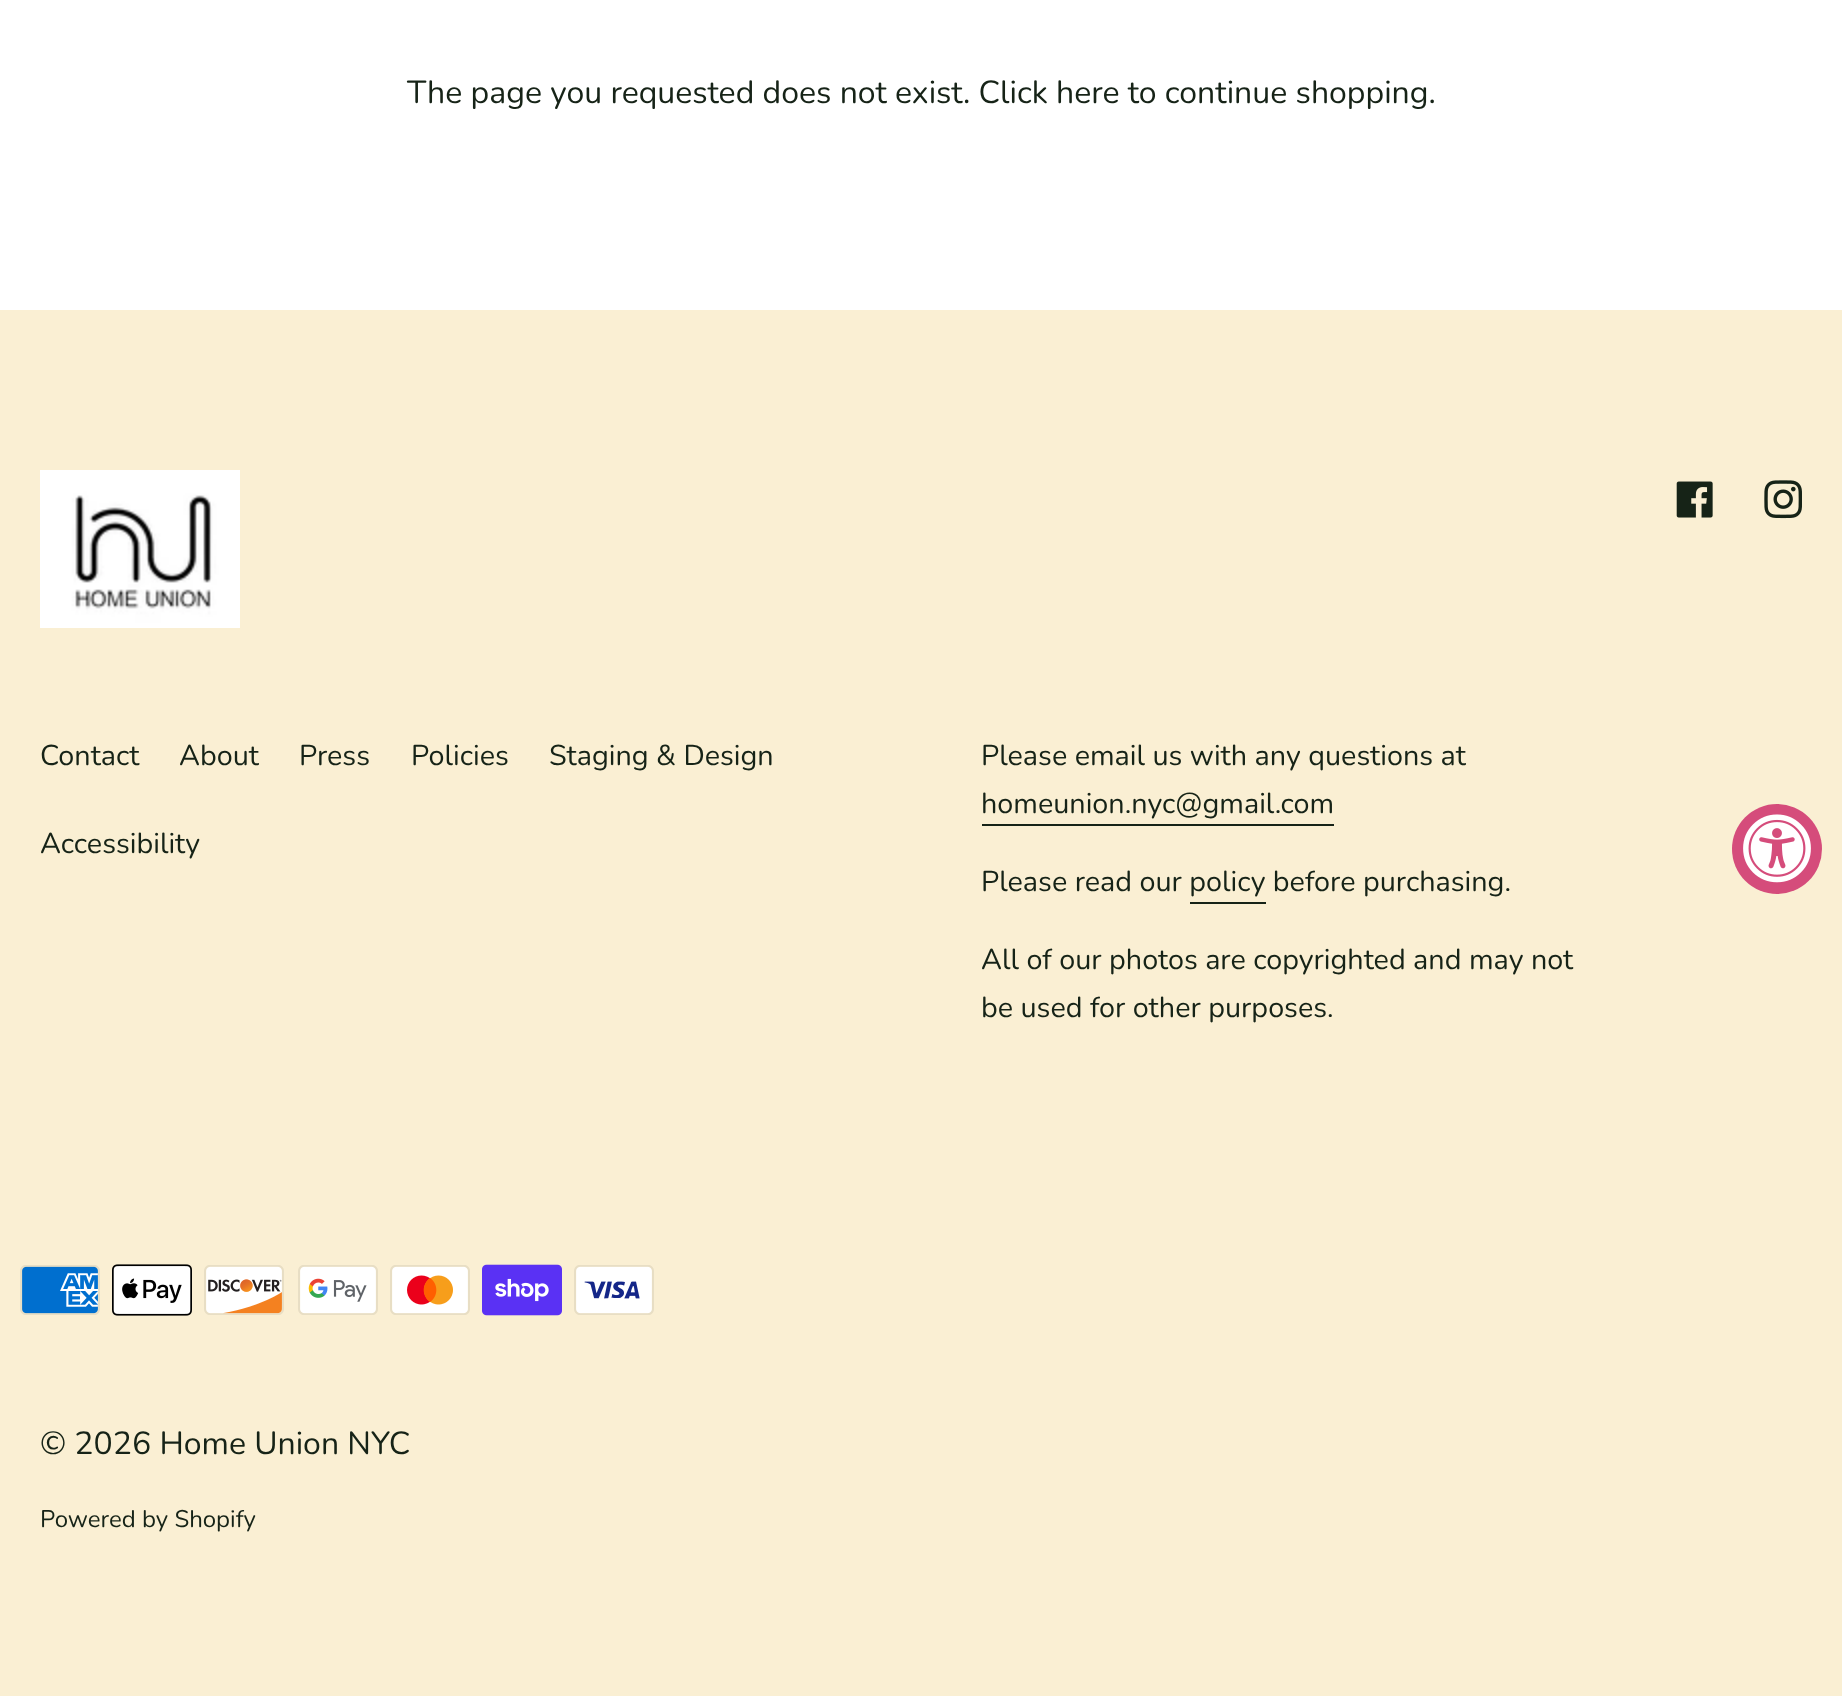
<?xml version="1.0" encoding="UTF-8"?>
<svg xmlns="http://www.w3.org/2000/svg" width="1842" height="1696">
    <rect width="100%" height="100%" fill="#FFFFFF"/>
    <text x="407" y="103" font-family="Nunito" font-size="32" fill="#162317">The page you requested does not exist. Click here to continue shopping.</text>
    <rect x="0" y="310" width="1842" height="1386" fill="#FAEFD3"/>
    <image x="40" y="470" width="200" height="158" href="img_01.png"/>
    <image x="1676" y="481" width="37" height="37" href="img_02.png"/>
    <image x="1764" y="480" width="38" height="39" href="img_03.png"/>
    <text x="40" y="765" font-family="Nunito" font-size="28.75" fill="#162317">Contact</text>
    <text x="179" y="765" font-family="Nunito" font-size="28.75" fill="#162317">About</text>
    <text x="299" y="765" font-family="Nunito" font-size="28.75" fill="#162317">Press</text>
    <text x="411" y="765" font-family="Nunito" font-size="28.75" fill="#162317">Policies</text>
    <text x="549" y="765" font-family="Nunito" font-size="28.75" fill="#162317">Staging &amp; Design</text>
    <text x="40" y="853" font-family="Nunito" font-size="28.75" fill="#162317">Accessibility</text>
    <text font-family="Nunito" font-size="28.75" fill="#162317">
        <tspan x="981" y="765">Please email us with any questions at</tspan>
        <tspan x="981" y="813">homeunion.nyc@gmail.com</tspan>
    </text>
    <rect x="982" y="824" width="352" height="2" fill="#162317"/>
    <text x="981" y="891" font-family="Nunito" font-size="28.75" fill="#162317">Please read our policy before purchasing.</text>
    <rect x="1190" y="902" width="76" height="2" fill="#162317"/>
    <text x="981" y="969" font-family="Nunito" font-size="28.75" fill="#162317">All of our photos are copyrighted and</text>
    <text x="1469" y="969" font-family="Nunito" font-size="28.75" fill="#162317">may not</text>
    <text x="981" y="1017" font-family="Nunito" font-size="28.75" fill="#162317">be used for other purposes.</text>
    <image x="20" y="1265" width="80" height="50" href="img_04.png"/>
    <image x="112" y="1264" width="80" height="52" href="img_05.png"/>
    <image x="204" y="1265" width="80" height="50" href="img_06.png"/>
    <image x="298" y="1265" width="80" height="50" href="img_07.png"/>
    <image x="390" y="1265" width="80" height="50" href="img_08.png"/>
    <image x="482" y="1264" width="80" height="52" href="img_09.png"/>
    <image x="574" y="1265" width="80" height="50" href="img_10.png"/>
    <text x="40" y="1454" font-family="Nunito" font-size="32" fill="#162317">© 2026 Home Union NYC</text>
    <text x="40" y="1527" font-family="Nunito" font-size="24" fill="#162317">Powered by Shopify</text>
    <circle cx="1777" cy="849" r="45" fill="#D54C7B"/>
    <image x="1743" y="814" width="68" height="69" href="img_11.png"/>
</svg>
